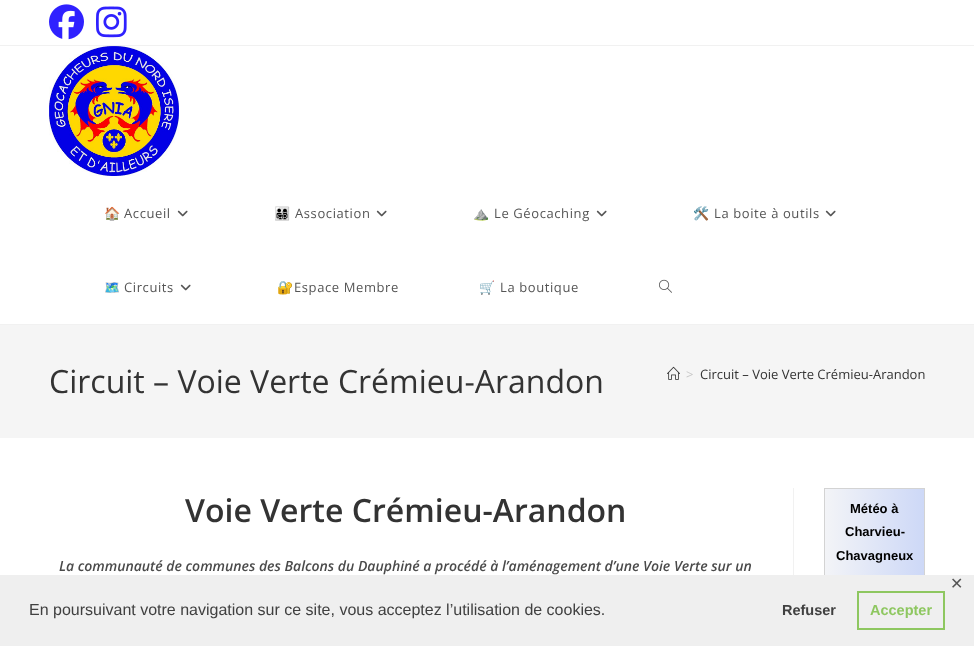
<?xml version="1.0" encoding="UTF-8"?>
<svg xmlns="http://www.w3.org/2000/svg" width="974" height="646">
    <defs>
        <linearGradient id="g1" gradientUnits="userSpaceOnUse" x1="924" y1="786" x2="825" y2="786"><stop offset="0" stop-color="#CDD8F7"/><stop offset="1" stop-color="#F3F4F7"/></linearGradient>
    </defs>
    <rect width="100%" height="100%" fill="#FFFFFF"/>
    <rect x="0" y="45" width="974" height="1" fill="#F1F1F1"/>
    <image x="49" y="4" width="35" height="36" href="img_01.png"/>
    <image x="96" y="6" width="31" height="32" href="img_02.png"/>
    <rect x="0" y="324" width="974" height="1" fill="#F1F1F1"/>
    <image x="49" y="46" width="130" height="130" href="img_03.png"/>
    <text x="104" y="218" font-family="Noto Color Emoji" font-size="13" letter-spacing="0.6" fill="#555555">🏠</text>
    <text x="124" y="218" font-family="Open Sans" font-size="13" letter-spacing="0.6" fill="#555555">Accueil</text>
    <image x="177" y="210" width="11" height="7" href="img_04.png"/>
    <text x="274" y="218" font-family="Noto Color Emoji" font-size="13" letter-spacing="0.6" fill="#555555">👨‍👩‍👧‍👦</text>
    <text x="295" y="218" font-family="Open Sans" font-size="13" letter-spacing="0.6" fill="#555555">Association</text>
    <image x="376" y="210" width="11" height="7" href="img_04.png"/>
    <text x="473" y="218" font-family="Noto Color Emoji" font-size="13" letter-spacing="0.6" fill="#555555">⛰️</text>
    <text x="494" y="218" font-family="Open Sans" font-size="13" letter-spacing="0.6" fill="#555555">Le Géocaching</text>
    <image x="596" y="210" width="11" height="7" href="img_04.png"/>
    <text x="693" y="218" font-family="Noto Color Emoji" font-size="13" letter-spacing="0.6" fill="#555555">🛠️</text>
    <text x="714" y="218" font-family="Open Sans" font-size="13" letter-spacing="0.6" fill="#555555">La boite à outils</text>
    <image x="825" y="210" width="11" height="7" href="img_04.png"/>
    <text x="104" y="292" font-family="Noto Color Emoji" font-size="13" letter-spacing="0.6" fill="#555555">🗺️</text>
    <text x="124" y="292" font-family="Open Sans" font-size="13" letter-spacing="0.6" fill="#555555">Circuits</text>
    <image x="180" y="284" width="11" height="7" href="img_04.png"/>
    <text x="277" y="292" font-family="Noto Color Emoji" font-size="13" letter-spacing="0.6" fill="#555555">🔐</text>
    <text x="294" y="292" font-family="Open Sans" font-size="13" letter-spacing="0.6" fill="#555555">Espace Membre</text>
    <text x="479" y="292" font-family="Noto Color Emoji" font-size="13" letter-spacing="0.6" fill="#555555">🛒</text>
    <text x="500" y="292" font-family="Open Sans" font-size="13" letter-spacing="0.6" fill="#555555">La boutique</text>
    <image x="659" y="279" width="13" height="14" href="img_05.png"/>
    <rect x="0" y="325" width="974" height="113" fill="#F5F5F5"/>
    <text x="49" y="393" font-family="Open Sans" font-size="32" fill="#333333">Circuit – Voie Verte Crémieu-Arandon</text>
    <image x="667" y="366" width="13" height="14" href="img_06.png"/>
    <text x="686" y="379" font-family="Open Sans" font-size="13" fill="#C6C6C6">&gt;</text>
    <text x="700" y="379" font-family="Open Sans" font-size="13" fill="#333333">Circuit – Voie Verte Crémieu-Arandon</text>
    <rect x="793" y="488" width="1" height="87" fill="#F1F1F1"/>
    <text x="185" y="522" font-family="Open Sans" font-size="32" font-weight="600" fill="#333333">Voie Verte Crémieu-Arandon</text>
    <text x="59" y="571" font-family="Open Sans" font-size="14" font-weight="600" font-style="italic" fill="#4A4A4A">La communauté de communes des Balcons du Dauphiné a procédé à l’aménagement d’une Voie Verte sur un</text>
    <rect x="824.5" y="488.5" width="100" height="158" fill="none" stroke="#D3D3D3"/>
    <rect x="825" y="489" width="99" height="86" fill="url(#g1)"/>
    <text x="850" y="513" font-family="Liberation Sans" font-size="13" font-weight="700" fill="#000000">Météo à</text>
    <text x="845" y="536" font-family="Liberation Sans" font-size="13" font-weight="700" fill="#000000">Charvieu-</text>
    <text x="836" y="560" font-family="Liberation Sans" font-size="13" font-weight="700" fill="#000000">Chavagneux</text>
    <rect x="0" y="575" width="974" height="71" fill="#EFEFEF"/>
    <text x="950" y="589" font-family="DejaVu Sans" font-size="16" fill="#555555">✕</text>
    <text x="29" y="615" font-family="Liberation Sans" font-size="16" fill="#404040">En poursuivant votre navigation sur ce site, vous acceptez l’utilisation de cookies.</text>
    <text x="782" y="615" font-family="Liberation Sans" font-size="14.5" font-weight="700" fill="#404040">Refuser</text>
    <rect x="858" y="592" width="86" height="37" fill="none" stroke="#8EC760" stroke-width="2"/>
    <text x="870" y="615" font-family="Liberation Sans" font-size="14.5" font-weight="700" fill="#8EC760">Accepter</text>
</svg>
